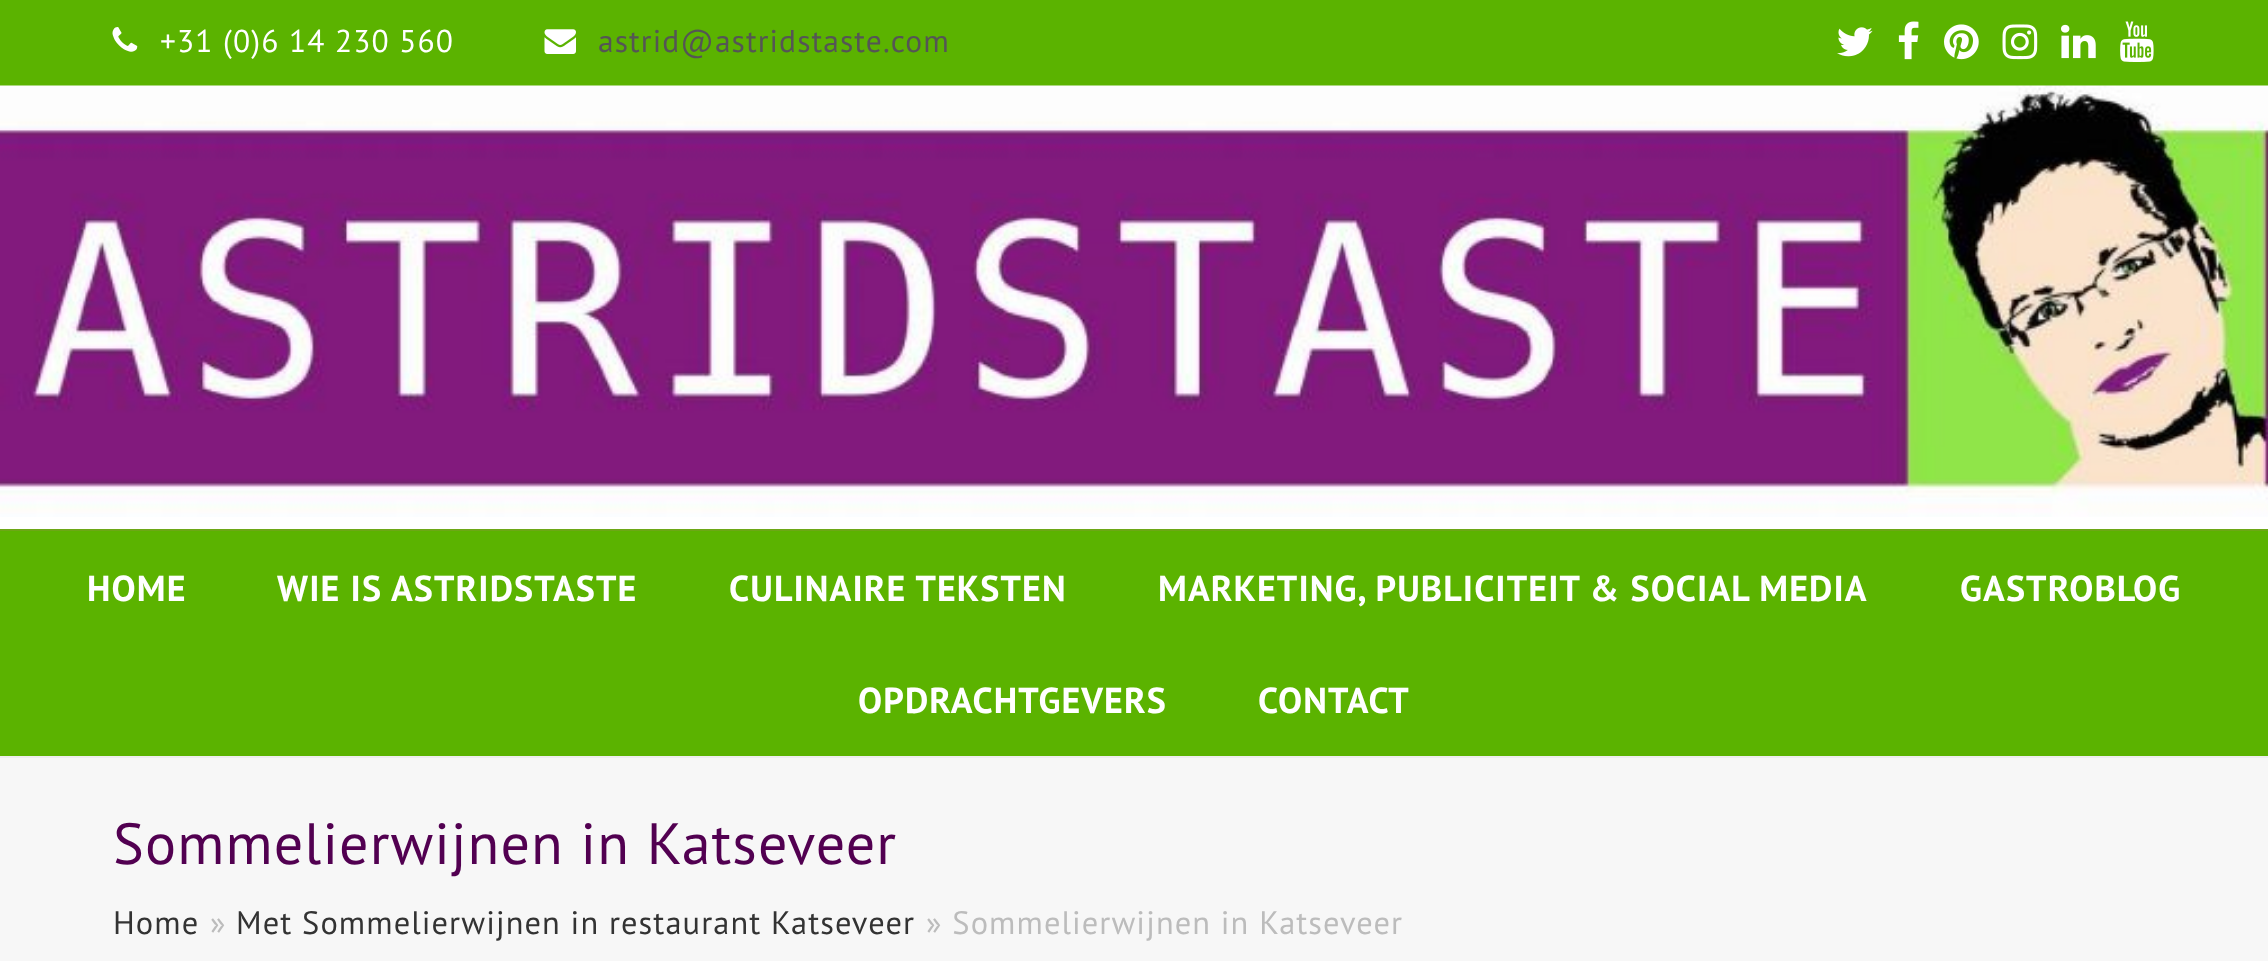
<?xml version="1.0" encoding="UTF-8"?>
<svg xmlns="http://www.w3.org/2000/svg" width="2268" height="961">
    <rect width="100%" height="100%" fill="#FFFFFF"/>
    <rect x="0" y="0" width="2268" height="86" fill="#5BB300"/>
    <image x="112" y="27" width="26" height="25" href="img_01.png"/>
    <text x="160" y="52" font-family="PT Sans" font-size="31.5" letter-spacing="1.1" fill="#FFFFFF">+31 (0)6 14 230 560</text>
    <image x="544" y="29" width="32" height="25" href="img_02.png"/>
    <text x="598" y="52" font-family="PT Sans" font-size="31.5" letter-spacing="1.1" fill="#555555">astrid@astridstaste.com</text>
    <image x="1837" y="27" width="36" height="30" href="img_03.png"/>
    <image x="1898" y="21" width="21" height="39" href="img_04.png"/>
    <image x="1944" y="24" width="35" height="36" href="img_05.png"/>
    <image x="2002" y="24" width="36" height="36" href="img_06.png"/>
    <image x="2061" y="24" width="35" height="35" href="img_07.png"/>
    <image x="2120" y="21" width="34" height="41" href="img_08.png"/>
    <image x="0" y="85" width="2268" height="432" href="img_09.png"/>
    <rect x="0" y="531" width="2268" height="225" fill="#5BB300"/>
    <rect x="0" y="529" width="2268" height="2" fill="#6DA716"/>
    <text x="87" y="601" font-family="PT Sans" font-size="36" font-weight="700" letter-spacing="1.1" fill="#FFFFFF">HOME</text>
    <text x="277" y="601" font-family="PT Sans" font-size="36" font-weight="700" letter-spacing="1.1" fill="#FFFFFF">WIE IS ASTRIDSTASTE</text>
    <text x="729" y="601" font-family="PT Sans" font-size="36" font-weight="700" letter-spacing="1.1" fill="#FFFFFF">CULINAIRE TEKSTEN</text>
    <text x="1158" y="601" font-family="PT Sans" font-size="36" font-weight="700" letter-spacing="1.1" fill="#FFFFFF">MARKETING, PUBLICITEIT &amp; SOCIAL MEDIA</text>
    <text x="1960" y="601" font-family="PT Sans" font-size="36" font-weight="700" letter-spacing="1.1" fill="#FFFFFF">GASTROBLOG</text>
    <text x="858" y="713" font-family="PT Sans" font-size="36" font-weight="700" letter-spacing="1.1" fill="#FFFFFF">OPDRACHTGEVERS</text>
    <text x="1258" y="713" font-family="PT Sans" font-size="36" font-weight="700" letter-spacing="1.1" fill="#FFFFFF">CONTACT</text>
    <rect x="0" y="758" width="2268" height="203" fill="#F7F7F7"/>
    <rect x="0" y="756" width="2268" height="2" fill="#EEEEEE"/>
    <text x="113" y="864" font-family="PT Sans" font-size="58.1" letter-spacing="1.1" fill="#520051">Sommelierwijnen in Katseveer</text>
    <text x="113" y="934" font-family="PT Sans" font-size="32.4" letter-spacing="1.1" fill="#333333">Home</text>
    <text x="210" y="934" font-family="PT Sans" font-size="32.4" letter-spacing="1.1" fill="#BCBCBC">»</text>
    <text x="236" y="934" font-family="PT Sans" font-size="32.4" letter-spacing="1.1" fill="#333333">Met Sommelierwijnen in restaurant Katseveer</text>
    <text x="926" y="934" font-family="PT Sans" font-size="32.4" letter-spacing="1.1" fill="#BCBCBC">» Sommelierwijnen in Katseveer</text>
</svg>
